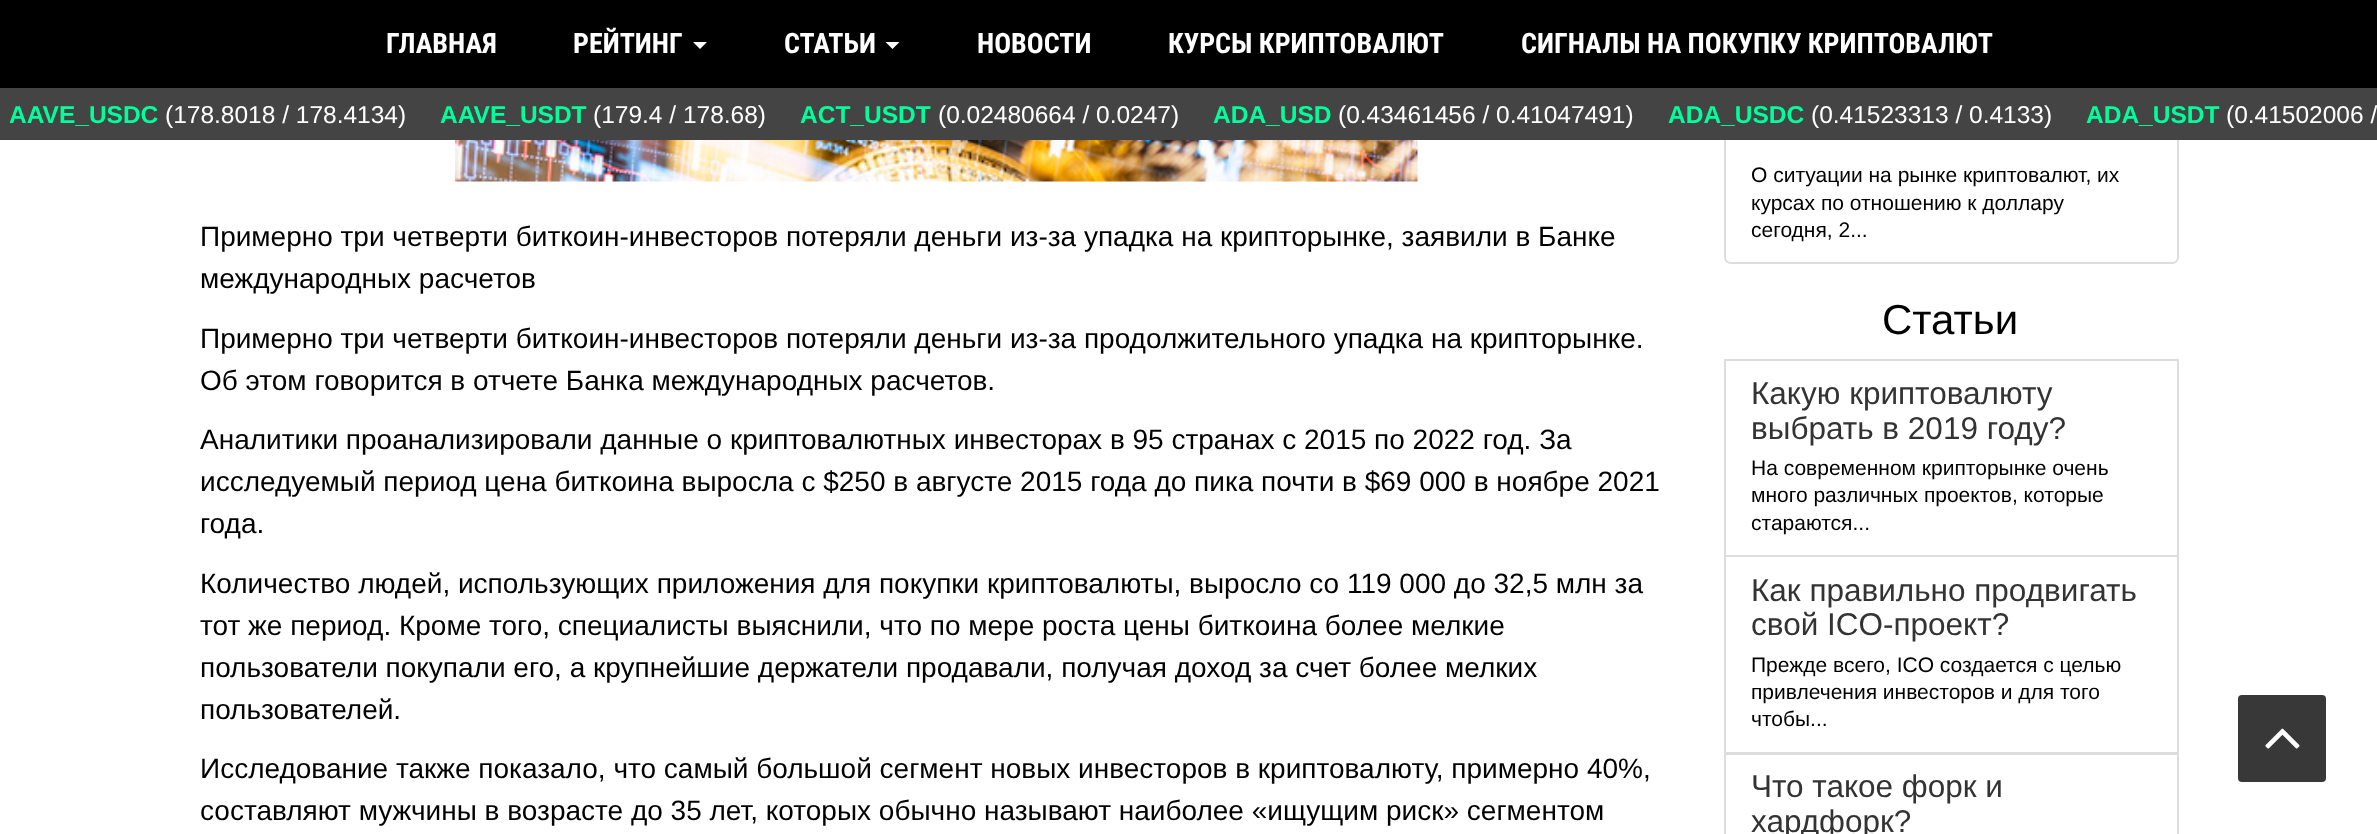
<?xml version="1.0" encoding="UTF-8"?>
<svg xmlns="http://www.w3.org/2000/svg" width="2377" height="834">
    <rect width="100%" height="100%" fill="#FFFFFF"/>
    <path d="M 1725 33 H 2178 V 257 C 2178 260.5 2175.5 263 2172 263 H 1731 C 1727.5 263 1725 260.5 1725 257 Z" fill="none" stroke="#DDDDDD" stroke-width="2"/>
    <rect x="0" y="0" width="2377" height="88" fill="#000000"/>
    <text x="386" y="53" font-family="Roboto Condensed" font-size="28" font-weight="700" fill="#FFFFFF">ГЛАВНАЯ</text>
    <text x="573" y="53" font-family="Roboto Condensed" font-size="28" font-weight="700" fill="#FFFFFF">РЕЙТИНГ</text>
    <path d="M 693 42 H 707 L 700 49 Z" fill="#FFFFFF"/>
    <text x="784" y="53" font-family="Roboto Condensed" font-size="28" font-weight="700" fill="#FFFFFF">СТАТЬИ</text>
    <path d="M 885.5 42 H 899.5 L 892.5 49 Z" fill="#FFFFFF"/>
    <text x="977" y="53" font-family="Roboto Condensed" font-size="28" font-weight="700" fill="#FFFFFF">НОВОСТИ</text>
    <text x="1168" y="53" font-family="Roboto Condensed" font-size="28" font-weight="700" fill="#FFFFFF">КУРСЫ КРИПТОВАЛЮТ</text>
    <text x="1521" y="53" font-family="Roboto Condensed" font-size="28" font-weight="700" fill="#FFFFFF">СИГНАЛЫ НА ПОКУПКУ КРИПТОВАЛЮТ</text>
    <rect x="0" y="88" width="2377" height="52" fill="#444444"/>
    <text x="9" y="123" font-family="Liberation Sans" font-size="24.5" font-weight="700" fill="#00FF9C">AAVE_USDC</text>
    <text x="165" y="123" font-family="Liberation Sans" font-size="24.5" fill="#FFFFFF">(178.8018 / 178.4134)</text>
    <text x="440" y="123" font-family="Liberation Sans" font-size="24.5" font-weight="700" fill="#00FF9C">AAVE_USDT</text>
    <text x="593" y="123" font-family="Liberation Sans" font-size="24.5" fill="#FFFFFF">(179.4 / 178.68)</text>
    <text x="800" y="123" font-family="Liberation Sans" font-size="24.5" font-weight="700" fill="#00FF9C">ACT_USDT</text>
    <text x="938" y="123" font-family="Liberation Sans" font-size="24.5" fill="#FFFFFF">(0.02480664 / 0.0247)</text>
    <text x="1213" y="123" font-family="Liberation Sans" font-size="24.5" font-weight="700" fill="#00FF9C">ADA_USD</text>
    <text x="1338" y="123" font-family="Liberation Sans" font-size="24.5" fill="#FFFFFF">(0.43461456 / 0.41047491)</text>
    <text x="1668" y="123" font-family="Liberation Sans" font-size="24.5" font-weight="700" fill="#00FF9C">ADA_USDC</text>
    <text x="1811" y="123" font-family="Liberation Sans" font-size="24.5" fill="#FFFFFF">(0.41523313 / 0.4133)</text>
    <text x="2086" y="123" font-family="Liberation Sans" font-size="24.5" font-weight="700" fill="#00FF9C">ADA_USDT</text>
    <text x="2226" y="123" font-family="Liberation Sans" font-size="24.5" fill="#FFFFFF">(0.41502006 /</text>
    <image x="455" y="140" width="963" height="42" href="img_01.png"/>
    <text font-family="Liberation Sans" font-size="28" fill="#000000">
        <tspan x="200" y="246">Примерно три четверти биткоин-инвесторов потеряли деньги из-за упадка на крипторынке, заявили в Банке</tspan>
        <tspan x="200" y="288">международных расчетов</tspan>
    </text>
    <text font-family="Liberation Sans" font-size="28" fill="#000000">
        <tspan x="200" y="348">Примерно три четверти биткоин-инвесторов потеряли деньги из-за продолжительного упадка на крипторынке.</tspan>
        <tspan x="200" y="390">Об этом говорится в отчете Банка международных расчетов.</tspan>
    </text>
    <text font-family="Liberation Sans" font-size="28" fill="#000000">
        <tspan x="200" y="449">Аналитики проанализировали данные о криптовалютных инвесторах в 95 странах с 2015 по 2022 год. За</tspan>
        <tspan x="200" y="491">исследуемый период цена биткоина выросла с $250 в августе 2015 года до пика почти в $69 000 в ноябре 2021</tspan>
        <tspan x="200" y="533">года.</tspan>
    </text>
    <text font-family="Liberation Sans" font-size="28" fill="#000000">
        <tspan x="200" y="593">Количество людей, использующих приложения для покупки криптовалюты, выросло со 119 000 до 32,5 млн за</tspan>
        <tspan x="200" y="635">тот же период. Кроме того, специалисты выяснили, что по мере роста цены биткоина более мелкие</tspan>
        <tspan x="200" y="677">пользователи покупали его, а крупнейшие держатели продавали, получая доход за счет более мелких</tspan>
        <tspan x="200" y="719">пользователей.</tspan>
    </text>
    <text font-family="Liberation Sans" font-size="28" fill="#000000">
        <tspan x="200" y="778">Исследование также показало, что самый большой сегмент новых инвесторов в криптовалюту, примерно 40%,</tspan>
        <tspan x="200" y="820">составляют мужчины в возрасте до 35 лет, которых обычно называют наиболее «ищущим риск» сегментом</tspan>
    </text>
    <text font-family="Liberation Sans" font-size="21" fill="#000000">
        <tspan x="1751" y="182">О ситуации на рынке криптовалют, их</tspan>
        <tspan x="1751" y="210">курсах по отношению к доллару</tspan>
        <tspan x="1751" y="237">сегодня, 2...</tspan>
    </text>
    <text x="1882" y="334" font-family="Liberation Sans" font-size="42" fill="#000000">Статьи</text>
    <rect x="1725" y="360" width="453" height="196" fill="none" stroke="#DDDDDD" stroke-width="2"/>
    <text font-family="Liberation Sans" font-size="31.5" fill="#333333">
        <tspan x="1751" y="404">Какую криптовалюту</tspan>
        <tspan x="1751" y="439">выбрать в 2019 году?</tspan>
    </text>
    <text font-family="Liberation Sans" font-size="21" fill="#000000">
        <tspan x="1751" y="475">На современном крипторынке очень</tspan>
        <tspan x="1751" y="502">много различных проектов, которые</tspan>
        <tspan x="1751" y="530">стараются...</tspan>
    </text>
    <rect x="1725" y="556" width="453" height="197" fill="none" stroke="#DDDDDD" stroke-width="2"/>
    <text font-family="Liberation Sans" font-size="31.5" fill="#333333">
        <tspan x="1751" y="601">Как правильно продвигать</tspan>
        <tspan x="1751" y="635">свой ICO-проект?</tspan>
    </text>
    <text font-family="Liberation Sans" font-size="21" fill="#000000">
        <tspan x="1751" y="672">Прежде всего, ICO создается с целью</tspan>
        <tspan x="1751" y="699">привлечения инвесторов и для того</tspan>
        <tspan x="1751" y="726">чтобы...</tspan>
    </text>
    <rect x="1725" y="754" width="453" height="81" fill="none" stroke="#DDDDDD" stroke-width="2"/>
    <text font-family="Liberation Sans" font-size="31.5" fill="#333333">
        <tspan x="1751" y="797">Что такое форк и</tspan>
        <tspan x="1751" y="832">хардфорк?</tspan>
    </text>
    <rect x="2238" y="695" width="88" height="87" rx="4" fill="#383838"/>
    <image x="2265" y="728" width="35" height="21" href="img_02.png"/>
</svg>
